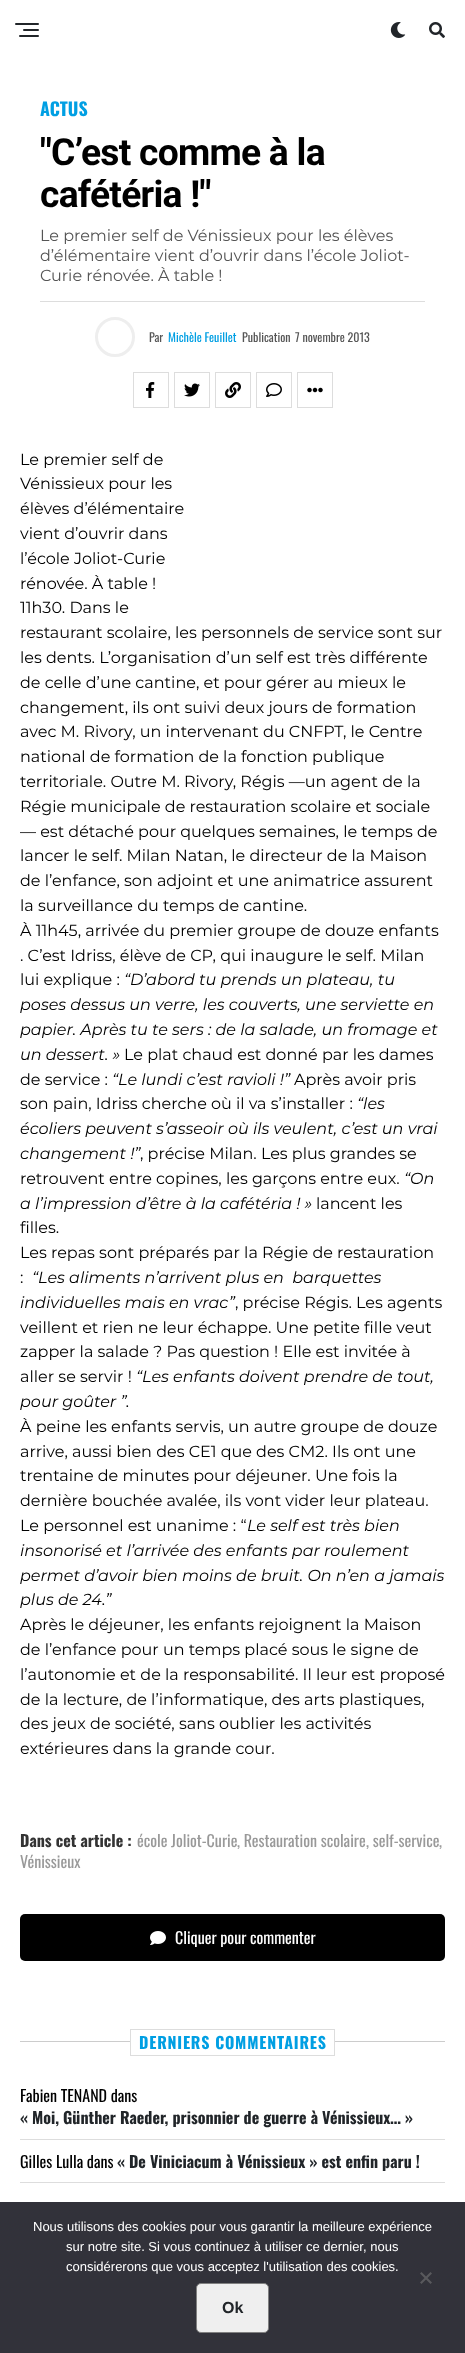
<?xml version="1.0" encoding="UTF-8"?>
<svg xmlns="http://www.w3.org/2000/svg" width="465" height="2353">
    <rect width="100%" height="100%" fill="#FFFFFF"/>
    <rect x="15" y="23" width="24" height="2" rx="1" fill="#212529"/>
    <rect x="23" y="29" width="16" height="2" rx="1" fill="#212529"/>
    <rect x="19" y="35" width="20" height="2" rx="1" fill="#212529"/>
    <image x="390" y="22" width="16" height="16" href="img_01.png"/>
    <image x="429" y="22" width="16" height="16" href="img_02.png"/>
    <text x="40" y="116" font-family="Oswald" font-size="18" font-weight="700" fill="#009FE3">ACTUS</text>
    <text font-family="Roboto" font-size="37.25" font-weight="700" letter-spacing="-0.75" fill="#000000">
        <tspan x="40" y="165">"C’est comme à la</tspan>
        <tspan x="40" y="207">cafétéria !"</tspan>
    </text>
    <text font-family="Montserrat" font-size="16" fill="#555555">
        <tspan x="40" y="241">Le premier self de Vénissieux pour les élèves</tspan>
        <tspan x="40" y="261">d’élémentaire vient d’ouvrir dans l’école Joliot-</tspan>
        <tspan x="40" y="281">Curie rénovée. À table !</tspan>
    </text>
    <rect x="40" y="301" width="385" height="1" fill="#DDDDDD"/>
    <circle cx="115" cy="337" r="18.5" fill="none" stroke="#EEEEEE" stroke-width="3"/>
    <text x="149" y="342" font-family="Oswald" font-size="12" fill="#555555">Par</text>
    <text x="168" y="342" font-family="Oswald" font-size="12" fill="#009FE3">Michèle Feuillet</text>
    <text x="242" y="342" font-family="Oswald" font-size="12" fill="#555555">Publication</text>
    <text x="295" y="342" font-family="Oswald" font-size="12" fill="#555555">7 novembre 2013</text>
    <rect x="133.5" y="372.5" width="35" height="35" fill="none" stroke="#DDDDDD"/>
    <image x="146" y="382" width="9" height="16" href="img_03.png"/>
    <rect x="174.5" y="372.5" width="35" height="35" fill="none" stroke="#DDDDDD"/>
    <image x="184" y="383" width="16" height="14" href="img_04.png"/>
    <rect x="215.5" y="372.5" width="35" height="35" fill="none" stroke="#DDDDDD"/>
    <image x="225" y="382" width="16" height="16" href="img_05.png"/>
    <rect x="256.5" y="372.5" width="35" height="35" fill="none" stroke="#DDDDDD"/>
    <image x="266" y="383" width="16" height="14" href="img_06.png"/>
    <rect x="297.5" y="372.5" width="35" height="35" fill="none" stroke="#DDDDDD"/>
    <image x="307" y="387" width="16" height="6" href="img_07.png"/>
    <text font-family="Montserrat" font-size="16" fill="#000000">
        <tspan x="20" y="465">Le premier self de</tspan>
        <tspan x="20" y="489">Vénissieux pour les</tspan>
        <tspan x="20" y="514">élèves d’élémentaire</tspan>
        <tspan x="20" y="539">vient d’ouvrir dans</tspan>
        <tspan x="20" y="564">l’école Joliot-Curie</tspan>
        <tspan x="20" y="589">rénovée. À table !</tspan>
        <tspan x="20" y="613">11h30. Dans le</tspan>
        <tspan x="20" y="638">restaurant scolaire, les personnels de service sont sur</tspan>
        <tspan x="20" y="663">les dents. L’organisation d’un self est très différente</tspan>
        <tspan x="20" y="688">de celle d’une cantine, et pour gérer au mieux le</tspan>
        <tspan x="20" y="713">changement, ils ont suivi deux jours de formation</tspan>
        <tspan x="20" y="737">avec M. Rivory, un intervenant du CNFPT, le Centre</tspan>
        <tspan x="20" y="762">national de formation de la fonction publique</tspan>
        <tspan x="20" y="787">territoriale. Outre M. Rivory, Régis —un agent de la</tspan>
        <tspan x="20" y="812">Régie municipale de restauration scolaire et sociale</tspan>
        <tspan x="20" y="837">— est détaché pour quelques semaines, le temps de</tspan>
        <tspan x="20" y="861">lancer le self. Milan Natan, le directeur de la Maison</tspan>
        <tspan x="20" y="886">de l’enfance, son adjoint et une animatrice assurent</tspan>
        <tspan x="20" y="911">la surveillance du temps de cantine.</tspan>
        <tspan x="20" y="936">À 11h45, arrivée du premier groupe de douze enfants</tspan>
        <tspan x="20" y="961">. C’est Idriss, élève de CP, qui inaugure le self. Milan</tspan>
        <tspan x="20" y="985">lui explique :</tspan>
    </text>
    <text x="124" y="985" font-family="Montserrat" font-size="16" font-style="italic" fill="#000000">“D’abord tu prends un plateau, tu</text>
    <text font-family="Montserrat" font-size="16" font-style="italic" fill="#000000">
        <tspan x="20" y="1010">poses dessus un verre, les couverts, une serviette en</tspan>
        <tspan x="20" y="1035">papier. Après tu te sers : de la salade, un fromage et</tspan>
        <tspan x="20" y="1060">un dessert. »</tspan>
    </text>
    <text x="124" y="1060" font-family="Montserrat" font-size="16" fill="#000000">Le plat chaud est donné par les dames</text>
    <text x="20" y="1085" font-family="Montserrat" font-size="16" fill="#000000">de service :</text>
    <text x="112" y="1085" font-family="Montserrat" font-size="16" font-style="italic" fill="#000000">“Le lundi c’est ravioli !”</text>
    <text x="294" y="1085" font-family="Montserrat" font-size="16" fill="#000000">Après avoir pris</text>
    <text x="20" y="1109" font-family="Montserrat" font-size="16" fill="#000000">son pain, Idriss cherche où il va s’installer :</text>
    <text x="357" y="1109" font-family="Montserrat" font-size="16" font-style="italic" fill="#000000">“les</text>
    <text font-family="Montserrat" font-size="16" font-style="italic" fill="#000000">
        <tspan x="20" y="1134">écoliers peuvent s’asseoir où ils veulent, c’est un vrai</tspan>
        <tspan x="20" y="1159">changement !”</tspan>
    </text>
    <text x="140" y="1159" font-family="Montserrat" font-size="16" fill="#000000">, précise Milan. Les plus grandes se</text>
    <text x="20" y="1184" font-family="Montserrat" font-size="16" fill="#000000">retrouvent entre copines, les garçons entre eux.</text>
    <text x="404" y="1184" font-family="Montserrat" font-size="16" font-style="italic" fill="#000000">“On</text>
    <text x="20" y="1209" font-family="Montserrat" font-size="16" font-style="italic" fill="#000000">a l’impression d’être à la cafétéria ! »</text>
    <text x="316" y="1209" font-family="Montserrat" font-size="16" fill="#000000">lancent les</text>
    <text font-family="Montserrat" font-size="16" fill="#000000">
        <tspan x="20" y="1233">filles.</tspan>
        <tspan x="20" y="1258">Les repas sont préparés par la Régie de restauration</tspan>
        <tspan x="20" y="1283">:</tspan>
    </text>
    <text x="32" y="1283" font-family="Montserrat" font-size="16" font-style="italic" fill="#000000" xml:space="preserve">“Les aliments n’arrivent plus en  barquettes</text>
    <text x="20" y="1308" font-family="Montserrat" font-size="16" font-style="italic" fill="#000000">individuelles mais en vrac”</text>
    <text x="235" y="1308" font-family="Montserrat" font-size="16" fill="#000000">, précise Régis. Les agents</text>
    <text font-family="Montserrat" font-size="16" fill="#000000">
        <tspan x="20" y="1333">veillent et rien ne leur échappe. Une petite fille veut</tspan>
        <tspan x="20" y="1357">zapper la salade ? Pas question ! Elle est invitée à</tspan>
        <tspan x="20" y="1382">aller se servir !</tspan>
    </text>
    <text x="136" y="1382" font-family="Montserrat" font-size="16" font-style="italic" fill="#000000">“Les enfants doivent prendre de tout,</text>
    <text x="20" y="1407" font-family="Montserrat" font-size="16" font-style="italic" fill="#000000">pour goûter ”.</text>
    <text font-family="Montserrat" font-size="16" fill="#000000">
        <tspan x="20" y="1432">À peine les enfants servis, un autre groupe de douze</tspan>
        <tspan x="20" y="1457">arrive, aussi bien des CE1 que des CM2. Ils ont une</tspan>
        <tspan x="20" y="1481">trentaine de minutes pour déjeuner. Une fois la</tspan>
        <tspan x="20" y="1506">dernière bouchée avalée, ils vont vider leur plateau.</tspan>
        <tspan x="20" y="1531">Le personnel est unanime : “</tspan>
    </text>
    <text x="247" y="1531" font-family="Montserrat" font-size="16" font-style="italic" fill="#000000">Le self est très bien</text>
    <text font-family="Montserrat" font-size="16" font-style="italic" fill="#000000">
        <tspan x="20" y="1556">insonorisé et l’arrivée des enfants par roulement</tspan>
        <tspan x="20" y="1581">permet d’avoir bien moins de bruit. On n’en a jamais</tspan>
        <tspan x="20" y="1605">plus de 24.”</tspan>
    </text>
    <text font-family="Montserrat" font-size="16" fill="#000000">
        <tspan x="20" y="1630">Après le déjeuner, les enfants rejoignent la Maison</tspan>
        <tspan x="20" y="1655">de l’enfance pour un temps placé sous le signe de</tspan>
        <tspan x="20" y="1680">l’autonomie et de la responsabilité. Il leur est proposé</tspan>
        <tspan x="20" y="1705">de la lecture, de l’informatique, des arts plastiques,</tspan>
        <tspan x="20" y="1729">des jeux de société, sans oublier les activités</tspan>
        <tspan x="20" y="1754">extérieures dans la grande cour.</tspan>
    </text>
    <text x="137" y="1847" font-family="Oswald" font-size="16" fill="#999999">école Joliot-Curie</text>
    <text x="237" y="1847" font-family="Oswald" font-size="16" fill="#999999">, Restauration scolaire</text>
    <text x="366" y="1847" font-family="Oswald" font-size="16" fill="#999999">, self-service</text>
    <text x="439" y="1847" font-family="Oswald" font-size="16" fill="#999999">,</text>
    <text x="20" y="1868" font-family="Oswald" font-size="16" fill="#999999">Vénissieux</text>
    <text x="20" y="1847" font-family="Oswald" font-size="16" font-weight="700" fill="#333333">Dans cet article :</text>
    <rect x="20" y="1914" width="425" height="47" rx="5" fill="#000000"/>
    <image x="150" y="1931" width="16" height="14" href="img_08.png"/>
    <text x="175" y="1944" font-family="Oswald" font-size="16" fill="#FFFFFF">Cliquer pour commenter</text>
    <rect x="20" y="2041" width="425" height="1" fill="#CCCCCC"/>
    <rect x="131" y="2041" width="203" height="1" fill="#FFFFFF"/>
    <rect x="130.5" y="2029.5" width="204" height="26" fill="none" stroke="#DDDDDD"/>
    <text x="139" y="2049" font-family="Oswald" font-size="16" font-weight="700" letter-spacing="0.8" fill="#009FE3">DERNIERS COMMENTAIRES</text>
    <text x="20" y="2102" font-family="Oswald" font-size="16" fill="#000000">Fabien TENAND dans</text>
    <text x="20" y="2124" font-family="Oswald" font-size="16" font-weight="700" fill="#212529">« Moi, Günther Raeder, prisonnier de guerre à Vénissieux… »</text>
    <rect x="20" y="2139" width="425" height="1" fill="#DDDDDD"/>
    <text x="20" y="2168" font-family="Oswald" font-size="16" fill="#000000">Gilles Lulla dans</text>
    <text x="117" y="2168" font-family="Oswald" font-size="16" font-weight="700" fill="#212529">« De Viniciacum à Vénissieux » est enfin paru !</text>
    <rect x="20" y="2182" width="425" height="1" fill="#DDDDDD"/>
    <rect x="0" y="2202" width="465" height="151" fill="#32323A"/>
    <text x="33" y="2231" font-family="Liberation Sans" font-size="13" fill="#FFFFFF">Nous utilisons des cookies pour vous garantir la meilleure expérience</text>
    <text font-family="Liberation Sans" font-size="13" fill="#FFFFFF">
        <tspan x="66" y="2251">sur notre site. Si vous continuez à utiliser ce dernier, nous</tspan>
        <tspan x="66" y="2271">considérerons que vous acceptez l'utilisation des cookies.</tspan>
    </text>
    <path d="M 430.5 2272 L 432 2273.5 L 421.5 2284 L 420 2282.5 Z" fill="#59595D"/>
    <path d="M 420 2273.5 L 421.5 2272 L 432 2282.5 L 430.5 2284 Z" fill="#59595D"/>
    <rect x="196.5" y="2283.5" width="72" height="49" rx="4.5" fill="#EFEFEF" stroke="#808080"/>
    <text x="222" y="2313" font-family="Liberation Sans" font-size="16" font-weight="700" fill="#212529">Ok</text>
</svg>
